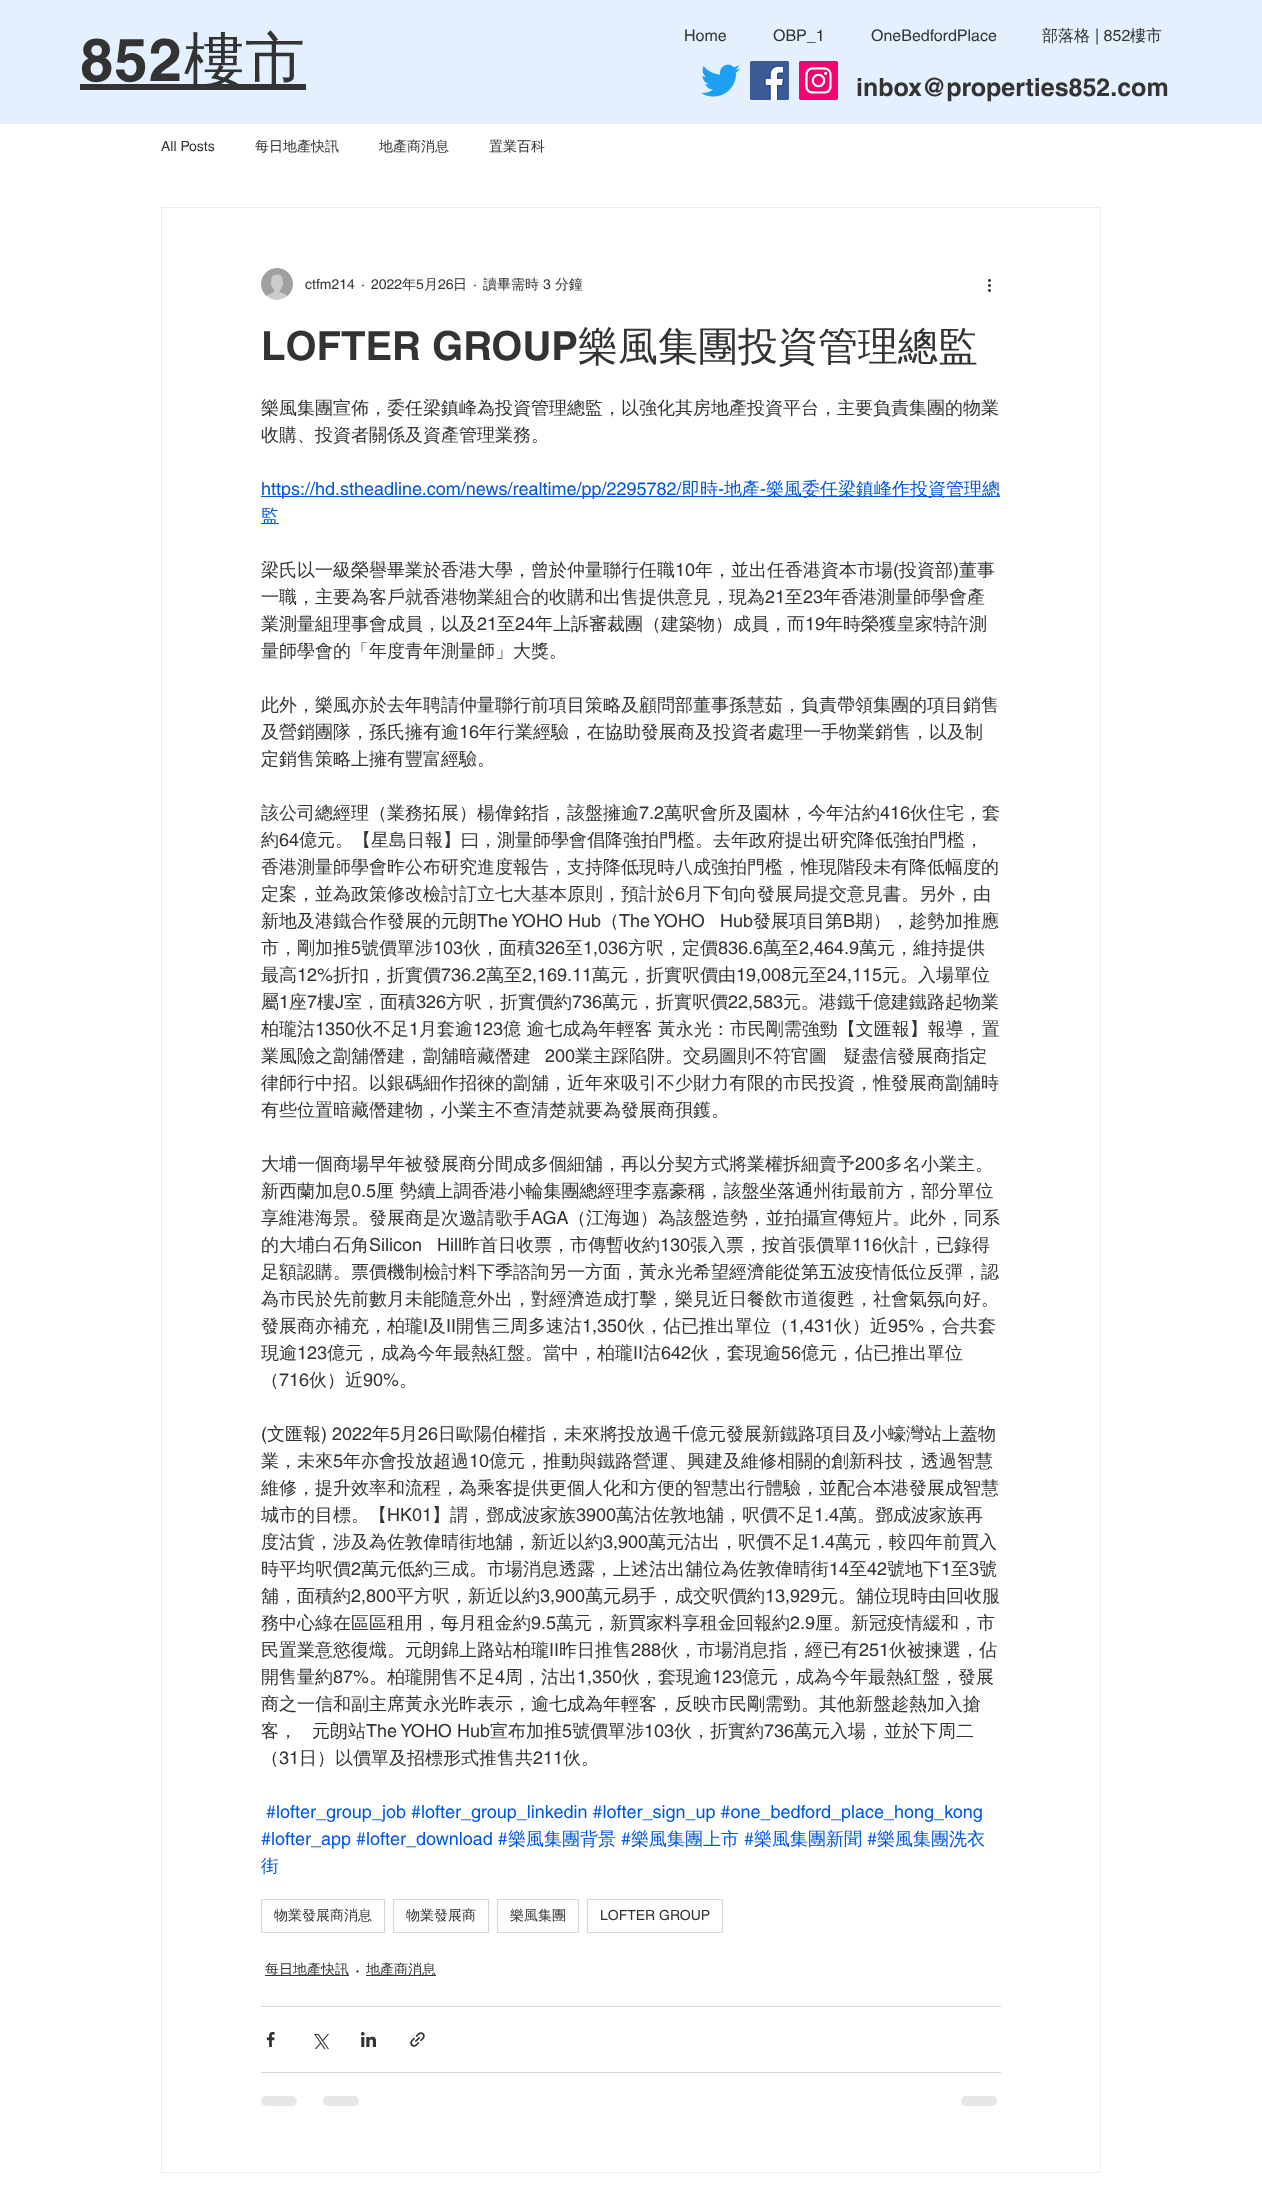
<?xml version="1.0" encoding="UTF-8"?>
<svg xmlns="http://www.w3.org/2000/svg" width="1262" height="2208">
    <rect width="100%" height="100%" fill="#FFFFFF"/>
    <rect x="0" y="0" width="1262" height="124" fill="#E5F0FE"/>
    <text x="80" y="81" font-family="helvetica" font-size="60" font-weight="700" letter-spacing="1" fill="#333333">852</text>
    <rect x="80" y="84" width="226" height="6" fill="#333333"/>
    <text x="184" y="81" font-family="WenQuanYi Zen Hei" font-size="60" font-weight="500" letter-spacing="1" fill="#333333">樓市</text>
    <text x="684" y="41" font-family="helvetica" font-size="16" fill="#333333">Home</text>
    <text x="773" y="41" font-family="helvetica" font-size="16" fill="#333333">OBP_1</text>
    <text x="871" y="41" font-family="helvetica" font-size="16" fill="#333333">OneBedfordPlace</text>
    <text x="1042" y="41" font-family="WenQuanYi Zen Hei" font-size="16" font-weight="500" fill="#333333">部落格</text>
    <text x="1095" y="41" font-family="helvetica" font-size="16" fill="#333333">| 852</text>
    <text x="1130" y="41" font-family="WenQuanYi Zen Hei" font-size="16" font-weight="500" fill="#333333">樓市</text>
    <image x="701" y="64" width="39" height="33" href="img_01.png"/>
    <image x="750" y="61" width="39" height="39" href="img_02.png"/>
    <image x="799" y="61" width="39" height="39" href="img_03.png"/>
    <text x="856" y="96" font-family="helvetica" font-size="25" font-weight="700" fill="#333333">inbox@properties852.com</text>
    <text x="161" y="151" font-family="helvetica" font-size="14" fill="#333333">All Posts</text>
    <text x="255" y="151" font-family="WenQuanYi Zen Hei" font-size="14" font-weight="500" fill="#333333">每日地產快訊</text>
    <text x="379" y="151" font-family="WenQuanYi Zen Hei" font-size="14" font-weight="500" fill="#333333">地產商消息</text>
    <text x="489" y="151" font-family="WenQuanYi Zen Hei" font-size="14" font-weight="500" fill="#333333">置業百科</text>
    <rect x="161.5" y="207.5" width="939" height="1965" fill="none" stroke="#EEECEC"/>
    <image x="261" y="268" width="32" height="32" href="img_04.png"/>
    <text x="305" y="289" font-family="helvetica" font-size="14" fill="#333333">ctfm214</text>
    <text x="361" y="289" font-family="helvetica" font-size="14" fill="#333333">·</text>
    <text x="371" y="289" font-family="helvetica" font-size="14" fill="#333333">2022</text>
    <text x="402" y="289" font-family="WenQuanYi Zen Hei" font-size="14" font-weight="500" fill="#333333">年</text>
    <text x="416" y="289" font-family="helvetica" font-size="14" fill="#333333">5</text>
    <text x="424" y="289" font-family="WenQuanYi Zen Hei" font-size="14" font-weight="500" fill="#333333">月</text>
    <text x="438" y="289" font-family="helvetica" font-size="14" fill="#333333">26</text>
    <text x="453" y="289" font-family="WenQuanYi Zen Hei" font-size="14" font-weight="500" fill="#333333">日</text>
    <text x="473" y="289" font-family="helvetica" font-size="14" fill="#333333">·</text>
    <text x="483" y="289" font-family="WenQuanYi Zen Hei" font-size="14" font-weight="500" fill="#333333">讀畢需時</text>
    <text x="543" y="289" font-family="helvetica" font-size="14" fill="#333333">3</text>
    <text x="555" y="289" font-family="WenQuanYi Zen Hei" font-size="14" font-weight="500" fill="#333333">分鐘</text>
    <image x="988" y="279" width="3" height="13" href="img_05.png"/>
    <text x="261" y="360" font-family="helvetica" font-size="40" font-weight="700" fill="#333333">LOFTER GROUP</text>
    <text x="578" y="360" font-family="WenQuanYi Zen Hei" font-size="40" font-weight="500" fill="#333333">樂風集團投資管理總監</text>
    <text font-family="WenQuanYi Zen Hei" font-size="18" font-weight="500" fill="#333333">
        <tspan x="261" y="414">樂風集團宣佈，委任梁鎮峰為投資管理總監，以強化其房地產投資平台，主要負責集團的物業</tspan>
        <tspan x="261" y="441">收購、投資者關係及資產管理業務。</tspan>
    </text>
    <rect x="261" y="496" width="739" height="1" fill="#0057E1"/>
    <text x="261" y="495" font-family="helvetica" font-size="18" fill="#0057E1">https://hd.stheadline.com/news/realtime/pp/2295782/</text>
    <text x="682" y="495" font-family="WenQuanYi Zen Hei" font-size="18" font-weight="500" fill="#0057E1">即時</text>
    <text x="718" y="495" font-family="helvetica" font-size="18" fill="#0057E1">-</text>
    <text x="724" y="495" font-family="WenQuanYi Zen Hei" font-size="18" font-weight="500" fill="#0057E1">地產</text>
    <text x="760" y="495" font-family="helvetica" font-size="18" fill="#0057E1">-</text>
    <text x="766" y="495" font-family="WenQuanYi Zen Hei" font-size="18" font-weight="500" fill="#0057E1">樂風委任梁鎮峰作投資管理總</text>
    <rect x="261" y="523" width="18" height="1" fill="#0057E1"/>
    <text x="261" y="522" font-family="WenQuanYi Zen Hei" font-size="18" font-weight="500" fill="#0057E1">監</text>
    <text x="261" y="576" font-family="WenQuanYi Zen Hei" font-size="18" font-weight="500" fill="#333333">梁氏以一級榮譽畢業於香港大學，曾於仲量聯行任職</text>
    <text x="675" y="576" font-family="helvetica" font-size="18" fill="#333333">10</text>
    <text x="695" y="576" font-family="WenQuanYi Zen Hei" font-size="18" font-weight="500" fill="#333333">年，並出任香港資本市場</text>
    <text x="893" y="576" font-family="helvetica" font-size="18" fill="#333333">(</text>
    <text x="899" y="576" font-family="WenQuanYi Zen Hei" font-size="18" font-weight="500" fill="#333333">投資部</text>
    <text x="953" y="576" font-family="helvetica" font-size="18" fill="#333333">)</text>
    <text x="959" y="576" font-family="WenQuanYi Zen Hei" font-size="18" font-weight="500" fill="#333333">董事</text>
    <text x="261" y="603" font-family="WenQuanYi Zen Hei" font-size="18" font-weight="500" fill="#333333">一職，主要為客戶就香港物業組合的收購和出售提供意見，現為</text>
    <text x="765" y="603" font-family="helvetica" font-size="18" fill="#333333">21</text>
    <text x="785" y="603" font-family="WenQuanYi Zen Hei" font-size="18" font-weight="500" fill="#333333">至</text>
    <text x="803" y="603" font-family="helvetica" font-size="18" fill="#333333">23</text>
    <text x="823" y="603" font-family="WenQuanYi Zen Hei" font-size="18" font-weight="500" fill="#333333">年香港測量師學會產</text>
    <text x="261" y="630" font-family="WenQuanYi Zen Hei" font-size="18" font-weight="500" fill="#333333">業測量組理事會成員，以及</text>
    <text x="477" y="630" font-family="helvetica" font-size="18" fill="#333333">21</text>
    <text x="497" y="630" font-family="WenQuanYi Zen Hei" font-size="18" font-weight="500" fill="#333333">至</text>
    <text x="515" y="630" font-family="helvetica" font-size="18" fill="#333333">24</text>
    <text x="535" y="630" font-family="WenQuanYi Zen Hei" font-size="18" font-weight="500" fill="#333333">年上訴審裁團（建築物）成員，而</text>
    <text x="805" y="630" font-family="helvetica" font-size="18" fill="#333333">19</text>
    <text x="825" y="630" font-family="WenQuanYi Zen Hei" font-size="18" font-weight="500" fill="#333333">年時榮獲皇家特許測</text>
    <text x="261" y="657" font-family="WenQuanYi Zen Hei" font-size="18" font-weight="500" fill="#333333">量師學會的「年度青年測量師」大獎。</text>
    <text font-family="WenQuanYi Zen Hei" font-size="18" font-weight="500" fill="#333333">
        <tspan x="261" y="711">此外，樂風亦於去年聘請仲量聯行前項目策略及顧問部董事孫慧茹，負責帶領集團的項目銷售</tspan>
        <tspan x="261" y="738">及營銷團隊，孫氏擁有逾</tspan>
    </text>
    <text x="459" y="738" font-family="helvetica" font-size="18" fill="#333333">16</text>
    <text x="479" y="738" font-family="WenQuanYi Zen Hei" font-size="18" font-weight="500" fill="#333333">年行業經驗，在協助發展商及投資者處理一手物業銷售，以及制</text>
    <text x="261" y="765" font-family="WenQuanYi Zen Hei" font-size="18" font-weight="500" fill="#333333">定銷售策略上擁有豐富經驗。</text>
    <text x="261" y="819" font-family="WenQuanYi Zen Hei" font-size="18" font-weight="500" fill="#333333">該公司總經理（業務拓展）楊偉銘指，該盤擁逾</text>
    <text x="639" y="819" font-family="helvetica" font-size="18" fill="#333333">7.2</text>
    <text x="664" y="819" font-family="WenQuanYi Zen Hei" font-size="18" font-weight="500" fill="#333333">萬呎會所及園林，今年沽約</text>
    <text x="880" y="819" font-family="helvetica" font-size="18" fill="#333333">416</text>
    <text x="910" y="819" font-family="WenQuanYi Zen Hei" font-size="18" font-weight="500" fill="#333333">伙住宅，套</text>
    <text x="261" y="846" font-family="WenQuanYi Zen Hei" font-size="18" font-weight="500" fill="#333333">約</text>
    <text x="279" y="846" font-family="helvetica" font-size="18" fill="#333333">64</text>
    <text x="299" y="846" font-family="WenQuanYi Zen Hei" font-size="18" font-weight="500" fill="#333333">億元。【星島日報】曰，測量師學會倡降強拍門檻。去年政府提出研究降低強拍門檻，</text>
    <text font-family="WenQuanYi Zen Hei" font-size="18" font-weight="500" fill="#333333">
        <tspan x="261" y="873">香港測量師學會昨公布研究進度報告，支持降低現時八成強拍門檻，惟現階段未有降低幅度的</tspan>
        <tspan x="261" y="900">定案，並為政策修改檢討訂立七大基本原則，預計於</tspan>
    </text>
    <text x="675" y="900" font-family="helvetica" font-size="18" fill="#333333">6</text>
    <text x="685" y="900" font-family="WenQuanYi Zen Hei" font-size="18" font-weight="500" fill="#333333">月下旬向發展局提交意見書。另外，由</text>
    <text x="261" y="927" font-family="WenQuanYi Zen Hei" font-size="18" font-weight="500" fill="#333333">新地及港鐵合作發展的元朗</text>
    <text x="477" y="927" font-family="helvetica" font-size="18" fill="#333333">The YOHO Hub</text>
    <text x="601" y="927" font-family="WenQuanYi Zen Hei" font-size="18" font-weight="500" fill="#333333">（</text>
    <text x="619" y="927" font-family="helvetica" font-size="18" fill="#333333" xml:space="preserve">The YOHO   Hub</text>
    <text x="753" y="927" font-family="WenQuanYi Zen Hei" font-size="18" font-weight="500" fill="#333333">發展項目第</text>
    <text x="843" y="927" font-family="helvetica" font-size="18" fill="#333333">B</text>
    <text x="855" y="927" font-family="WenQuanYi Zen Hei" font-size="18" font-weight="500" fill="#333333">期），趁勢加推應</text>
    <text x="261" y="954" font-family="WenQuanYi Zen Hei" font-size="18" font-weight="500" fill="#333333">市，剛加推</text>
    <text x="351" y="954" font-family="helvetica" font-size="18" fill="#333333">5</text>
    <text x="361" y="954" font-family="WenQuanYi Zen Hei" font-size="18" font-weight="500" fill="#333333">號價單涉</text>
    <text x="433" y="954" font-family="helvetica" font-size="18" fill="#333333">103</text>
    <text x="463" y="954" font-family="WenQuanYi Zen Hei" font-size="18" font-weight="500" fill="#333333">伙，面積</text>
    <text x="535" y="954" font-family="helvetica" font-size="18" fill="#333333">326</text>
    <text x="565" y="954" font-family="WenQuanYi Zen Hei" font-size="18" font-weight="500" fill="#333333">至</text>
    <text x="583" y="954" font-family="helvetica" font-size="18" fill="#333333">1,036</text>
    <text x="628" y="954" font-family="WenQuanYi Zen Hei" font-size="18" font-weight="500" fill="#333333">方呎，定價</text>
    <text x="718" y="954" font-family="helvetica" font-size="18" fill="#333333">836.6</text>
    <text x="763" y="954" font-family="WenQuanYi Zen Hei" font-size="18" font-weight="500" fill="#333333">萬至</text>
    <text x="799" y="954" font-family="helvetica" font-size="18" fill="#333333">2,464.9</text>
    <text x="859" y="954" font-family="WenQuanYi Zen Hei" font-size="18" font-weight="500" fill="#333333">萬元，維持提供</text>
    <text x="261" y="981" font-family="WenQuanYi Zen Hei" font-size="18" font-weight="500" fill="#333333">最高</text>
    <text x="297" y="981" font-family="helvetica" font-size="18" fill="#333333">12%</text>
    <text x="333" y="981" font-family="WenQuanYi Zen Hei" font-size="18" font-weight="500" fill="#333333">折扣，折實價</text>
    <text x="441" y="981" font-family="helvetica" font-size="18" fill="#333333">736.2</text>
    <text x="486" y="981" font-family="WenQuanYi Zen Hei" font-size="18" font-weight="500" fill="#333333">萬至</text>
    <text x="522" y="981" font-family="helvetica" font-size="18" fill="#333333">2,169.11</text>
    <text x="592" y="981" font-family="WenQuanYi Zen Hei" font-size="18" font-weight="500" fill="#333333">萬元，折實呎價由</text>
    <text x="736" y="981" font-family="helvetica" font-size="18" fill="#333333">19,008</text>
    <text x="791" y="981" font-family="WenQuanYi Zen Hei" font-size="18" font-weight="500" fill="#333333">元至</text>
    <text x="827" y="981" font-family="helvetica" font-size="18" fill="#333333">24,115</text>
    <text x="882" y="981" font-family="WenQuanYi Zen Hei" font-size="18" font-weight="500" fill="#333333">元。入場單位</text>
    <text x="261" y="1008" font-family="WenQuanYi Zen Hei" font-size="18" font-weight="500" fill="#333333">屬</text>
    <text x="279" y="1008" font-family="helvetica" font-size="18" fill="#333333">1</text>
    <text x="289" y="1008" font-family="WenQuanYi Zen Hei" font-size="18" font-weight="500" fill="#333333">座</text>
    <text x="307" y="1008" font-family="helvetica" font-size="18" fill="#333333">7</text>
    <text x="317" y="1008" font-family="WenQuanYi Zen Hei" font-size="18" font-weight="500" fill="#333333">樓</text>
    <text x="335" y="1008" font-family="helvetica" font-size="18" fill="#333333">J</text>
    <text x="344" y="1008" font-family="WenQuanYi Zen Hei" font-size="18" font-weight="500" fill="#333333">室，面積</text>
    <text x="416" y="1008" font-family="helvetica" font-size="18" fill="#333333">326</text>
    <text x="446" y="1008" font-family="WenQuanYi Zen Hei" font-size="18" font-weight="500" fill="#333333">方呎，折實價約</text>
    <text x="572" y="1008" font-family="helvetica" font-size="18" fill="#333333">736</text>
    <text x="602" y="1008" font-family="WenQuanYi Zen Hei" font-size="18" font-weight="500" fill="#333333">萬元，折實呎價</text>
    <text x="728" y="1008" font-family="helvetica" font-size="18" fill="#333333">22,583</text>
    <text x="783" y="1008" font-family="WenQuanYi Zen Hei" font-size="18" font-weight="500" fill="#333333">元。港鐵千億建鐵路起物業</text>
    <text x="261" y="1035" font-family="WenQuanYi Zen Hei" font-size="18" font-weight="500" fill="#333333">柏瓏沽</text>
    <text x="315" y="1035" font-family="helvetica" font-size="18" fill="#333333">1350</text>
    <text x="355" y="1035" font-family="WenQuanYi Zen Hei" font-size="18" font-weight="500" fill="#333333">伙不足</text>
    <text x="409" y="1035" font-family="helvetica" font-size="18" fill="#333333">1</text>
    <text x="419" y="1035" font-family="WenQuanYi Zen Hei" font-size="18" font-weight="500" fill="#333333">月套逾</text>
    <text x="473" y="1035" font-family="helvetica" font-size="18" fill="#333333">123</text>
    <text x="503" y="1035" font-family="WenQuanYi Zen Hei" font-size="18" font-weight="500" fill="#333333">億 逾七成為年輕客 黃永光：市民剛需強勁【文匯報】報導，置</text>
    <text x="261" y="1062" font-family="WenQuanYi Zen Hei" font-size="18" font-weight="500" fill="#333333">業風險之劏舖僭建，劏舖暗藏僭建</text>
    <text x="545" y="1062" font-family="helvetica" font-size="18" fill="#333333">200</text>
    <text x="575" y="1062" font-family="WenQuanYi Zen Hei" font-size="18" font-weight="500" fill="#333333" xml:space="preserve">業主踩陷阱。交易圖則不符官圖   疑盡信發展商指定</text>
    <text font-family="WenQuanYi Zen Hei" font-size="18" font-weight="500" fill="#333333">
        <tspan x="261" y="1089">律師行中招。以銀碼細作招徠的劏舖，近年來吸引不少財力有限的市民投資，惟發展商劏舖時</tspan>
        <tspan x="261" y="1116">有些位置暗藏僭建物，小業主不查清楚就要為發展商孭鑊。</tspan>
    </text>
    <text x="261" y="1170" font-family="WenQuanYi Zen Hei" font-size="18" font-weight="500" fill="#333333">大埔一個商場早年被發展商分間成多個細舖，再以分契方式將業權拆細賣予</text>
    <text x="855" y="1170" font-family="helvetica" font-size="18" fill="#333333">200</text>
    <text x="885" y="1170" font-family="WenQuanYi Zen Hei" font-size="18" font-weight="500" fill="#333333">多名小業主。</text>
    <text x="261" y="1197" font-family="WenQuanYi Zen Hei" font-size="18" font-weight="500" fill="#333333">新西蘭加息</text>
    <text x="351" y="1197" font-family="helvetica" font-size="18" fill="#333333">0.5</text>
    <text x="376" y="1197" font-family="WenQuanYi Zen Hei" font-size="18" font-weight="500" fill="#333333">厘 勢續上調香港小輪集團總經理李嘉豪稱，該盤坐落通州街最前方，部分單位</text>
    <text x="261" y="1224" font-family="WenQuanYi Zen Hei" font-size="18" font-weight="500" fill="#333333">享維港海景。發展商是次邀請歌手</text>
    <text x="531" y="1224" font-family="helvetica" font-size="18" fill="#333333">AGA</text>
    <text x="568" y="1224" font-family="WenQuanYi Zen Hei" font-size="18" font-weight="500" fill="#333333">（江海迦）為該盤造勢，並拍攝宣傳短片。此外，同系</text>
    <text x="261" y="1251" font-family="WenQuanYi Zen Hei" font-size="18" font-weight="500" fill="#333333">的大埔白石角</text>
    <text x="369" y="1251" font-family="helvetica" font-size="18" fill="#333333" xml:space="preserve">Silicon   Hill</text>
    <text x="462" y="1251" font-family="WenQuanYi Zen Hei" font-size="18" font-weight="500" fill="#333333">昨首日收票，市傳暫收約</text>
    <text x="660" y="1251" font-family="helvetica" font-size="18" fill="#333333">130</text>
    <text x="690" y="1251" font-family="WenQuanYi Zen Hei" font-size="18" font-weight="500" fill="#333333">張入票，按首張價單</text>
    <text x="852" y="1251" font-family="helvetica" font-size="18" fill="#333333">116</text>
    <text x="882" y="1251" font-family="WenQuanYi Zen Hei" font-size="18" font-weight="500" fill="#333333">伙計，已錄得</text>
    <text font-family="WenQuanYi Zen Hei" font-size="18" font-weight="500" fill="#333333">
        <tspan x="261" y="1278">足額認購。票價機制檢討料下季諮詢另一方面，黃永光希望經濟能從第五波疫情低位反彈，認</tspan>
        <tspan x="261" y="1305">為市民於先前數月未能隨意外出，對經濟造成打擊，樂見近日餐飲市道復甦，社會氣氛向好。</tspan>
        <tspan x="261" y="1332">發展商亦補充，柏瓏</tspan>
    </text>
    <text x="423" y="1332" font-family="helvetica" font-size="18" fill="#333333">I</text>
    <text x="428" y="1332" font-family="WenQuanYi Zen Hei" font-size="18" font-weight="500" fill="#333333">及</text>
    <text x="446" y="1332" font-family="helvetica" font-size="18" fill="#333333">II</text>
    <text x="456" y="1332" font-family="WenQuanYi Zen Hei" font-size="18" font-weight="500" fill="#333333">開售三周多速沽</text>
    <text x="582" y="1332" font-family="helvetica" font-size="18" fill="#333333">1,350</text>
    <text x="627" y="1332" font-family="WenQuanYi Zen Hei" font-size="18" font-weight="500" fill="#333333">伙，佔已推出單位（</text>
    <text x="789" y="1332" font-family="helvetica" font-size="18" fill="#333333">1,431</text>
    <text x="834" y="1332" font-family="WenQuanYi Zen Hei" font-size="18" font-weight="500" fill="#333333">伙）近</text>
    <text x="888" y="1332" font-family="helvetica" font-size="18" fill="#333333">95%</text>
    <text x="924" y="1332" font-family="WenQuanYi Zen Hei" font-size="18" font-weight="500" fill="#333333">，合共套</text>
    <text x="261" y="1359" font-family="WenQuanYi Zen Hei" font-size="18" font-weight="500" fill="#333333">現逾</text>
    <text x="297" y="1359" font-family="helvetica" font-size="18" fill="#333333">123</text>
    <text x="327" y="1359" font-family="WenQuanYi Zen Hei" font-size="18" font-weight="500" fill="#333333">億元，成為今年最熱紅盤。當中，柏瓏</text>
    <text x="633" y="1359" font-family="helvetica" font-size="18" fill="#333333">II</text>
    <text x="643" y="1359" font-family="WenQuanYi Zen Hei" font-size="18" font-weight="500" fill="#333333">沽</text>
    <text x="661" y="1359" font-family="helvetica" font-size="18" fill="#333333">642</text>
    <text x="691" y="1359" font-family="WenQuanYi Zen Hei" font-size="18" font-weight="500" fill="#333333">伙，套現逾</text>
    <text x="781" y="1359" font-family="helvetica" font-size="18" fill="#333333">56</text>
    <text x="801" y="1359" font-family="WenQuanYi Zen Hei" font-size="18" font-weight="500" fill="#333333">億元，佔已推出單位</text>
    <text x="261" y="1386" font-family="WenQuanYi Zen Hei" font-size="18" font-weight="500" fill="#333333">（</text>
    <text x="279" y="1386" font-family="helvetica" font-size="18" fill="#333333">716</text>
    <text x="309" y="1386" font-family="WenQuanYi Zen Hei" font-size="18" font-weight="500" fill="#333333">伙）近</text>
    <text x="363" y="1386" font-family="helvetica" font-size="18" fill="#333333">90%</text>
    <text x="399" y="1386" font-family="WenQuanYi Zen Hei" font-size="18" font-weight="500" fill="#333333">。</text>
    <text x="261" y="1440" font-family="helvetica" font-size="18" fill="#333333">(</text>
    <text x="267" y="1440" font-family="WenQuanYi Zen Hei" font-size="18" font-weight="500" fill="#333333">文匯報</text>
    <text x="321" y="1440" font-family="helvetica" font-size="18" fill="#333333">) 2022</text>
    <text x="372" y="1440" font-family="WenQuanYi Zen Hei" font-size="18" font-weight="500" fill="#333333">年</text>
    <text x="390" y="1440" font-family="helvetica" font-size="18" fill="#333333">5</text>
    <text x="400" y="1440" font-family="WenQuanYi Zen Hei" font-size="18" font-weight="500" fill="#333333">月</text>
    <text x="418" y="1440" font-family="helvetica" font-size="18" fill="#333333">26</text>
    <text x="438" y="1440" font-family="WenQuanYi Zen Hei" font-size="18" font-weight="500" fill="#333333">日歐陽伯權指，未來將投放過千億元發展新鐵路項目及小蠔灣站上蓋物</text>
    <text x="261" y="1467" font-family="WenQuanYi Zen Hei" font-size="18" font-weight="500" fill="#333333">業，未來</text>
    <text x="333" y="1467" font-family="helvetica" font-size="18" fill="#333333">5</text>
    <text x="343" y="1467" font-family="WenQuanYi Zen Hei" font-size="18" font-weight="500" fill="#333333">年亦會投放超過</text>
    <text x="469" y="1467" font-family="helvetica" font-size="18" fill="#333333">10</text>
    <text x="489" y="1467" font-family="WenQuanYi Zen Hei" font-size="18" font-weight="500" fill="#333333">億元，推動與鐵路營運、興建及維修相關的創新科技，透過智慧</text>
    <text font-family="WenQuanYi Zen Hei" font-size="18" font-weight="500" fill="#333333">
        <tspan x="261" y="1494">維修，提升效率和流程，為乘客提供更個人化和方便的智慧出行體驗，並配合本港發展成智慧</tspan>
        <tspan x="261" y="1521">城市的目標。【</tspan>
    </text>
    <text x="387" y="1521" font-family="helvetica" font-size="18" fill="#333333">HK01</text>
    <text x="432" y="1521" font-family="WenQuanYi Zen Hei" font-size="18" font-weight="500" fill="#333333">】謂，鄧成波家族</text>
    <text x="576" y="1521" font-family="helvetica" font-size="18" fill="#333333">3900</text>
    <text x="616" y="1521" font-family="WenQuanYi Zen Hei" font-size="18" font-weight="500" fill="#333333">萬沽佐敦地舖，呎價不足</text>
    <text x="814" y="1521" font-family="helvetica" font-size="18" fill="#333333">1.4</text>
    <text x="839" y="1521" font-family="WenQuanYi Zen Hei" font-size="18" font-weight="500" fill="#333333">萬。鄧成波家族再</text>
    <text x="261" y="1548" font-family="WenQuanYi Zen Hei" font-size="18" font-weight="500" fill="#333333">度沽貨，涉及為佐敦偉晴街地舖，新近以約</text>
    <text x="603" y="1548" font-family="helvetica" font-size="18" fill="#333333">3,900</text>
    <text x="648" y="1548" font-family="WenQuanYi Zen Hei" font-size="18" font-weight="500" fill="#333333">萬元沽出，呎價不足</text>
    <text x="810" y="1548" font-family="helvetica" font-size="18" fill="#333333">1.4</text>
    <text x="835" y="1548" font-family="WenQuanYi Zen Hei" font-size="18" font-weight="500" fill="#333333">萬元，較四年前買入</text>
    <text x="261" y="1575" font-family="WenQuanYi Zen Hei" font-size="18" font-weight="500" fill="#333333">時平均呎價</text>
    <text x="351" y="1575" font-family="helvetica" font-size="18" fill="#333333">2</text>
    <text x="361" y="1575" font-family="WenQuanYi Zen Hei" font-size="18" font-weight="500" fill="#333333">萬元低約三成。市場消息透露，上述沽出舖位為佐敦偉晴街</text>
    <text x="829" y="1575" font-family="helvetica" font-size="18" fill="#333333">14</text>
    <text x="849" y="1575" font-family="WenQuanYi Zen Hei" font-size="18" font-weight="500" fill="#333333">至</text>
    <text x="867" y="1575" font-family="helvetica" font-size="18" fill="#333333">42</text>
    <text x="887" y="1575" font-family="WenQuanYi Zen Hei" font-size="18" font-weight="500" fill="#333333">號地下</text>
    <text x="941" y="1575" font-family="helvetica" font-size="18" fill="#333333">1</text>
    <text x="951" y="1575" font-family="WenQuanYi Zen Hei" font-size="18" font-weight="500" fill="#333333">至</text>
    <text x="969" y="1575" font-family="helvetica" font-size="18" fill="#333333">3</text>
    <text x="979" y="1575" font-family="WenQuanYi Zen Hei" font-size="18" font-weight="500" fill="#333333">號</text>
    <text x="261" y="1602" font-family="WenQuanYi Zen Hei" font-size="18" font-weight="500" fill="#333333">舖，面積約</text>
    <text x="351" y="1602" font-family="helvetica" font-size="18" fill="#333333">2,800</text>
    <text x="396" y="1602" font-family="WenQuanYi Zen Hei" font-size="18" font-weight="500" fill="#333333">平方呎，新近以約</text>
    <text x="540" y="1602" font-family="helvetica" font-size="18" fill="#333333">3,900</text>
    <text x="585" y="1602" font-family="WenQuanYi Zen Hei" font-size="18" font-weight="500" fill="#333333">萬元易手，成交呎價約</text>
    <text x="765" y="1602" font-family="helvetica" font-size="18" fill="#333333">13,929</text>
    <text x="820" y="1602" font-family="WenQuanYi Zen Hei" font-size="18" font-weight="500" fill="#333333">元。舖位現時由回收服</text>
    <text x="261" y="1629" font-family="WenQuanYi Zen Hei" font-size="18" font-weight="500" fill="#333333">務中心綠在區區租用，每月租金約</text>
    <text x="531" y="1629" font-family="helvetica" font-size="18" fill="#333333">9.5</text>
    <text x="556" y="1629" font-family="WenQuanYi Zen Hei" font-size="18" font-weight="500" fill="#333333">萬元，新買家料享租金回報約</text>
    <text x="790" y="1629" font-family="helvetica" font-size="18" fill="#333333">2.9</text>
    <text x="815" y="1629" font-family="WenQuanYi Zen Hei" font-size="18" font-weight="500" fill="#333333">厘。新冠疫情緩和，市</text>
    <text x="261" y="1656" font-family="WenQuanYi Zen Hei" font-size="18" font-weight="500" fill="#333333">民置業意慾復熾。元朗錦上路站柏瓏</text>
    <text x="549" y="1656" font-family="helvetica" font-size="18" fill="#333333">II</text>
    <text x="559" y="1656" font-family="WenQuanYi Zen Hei" font-size="18" font-weight="500" fill="#333333">昨日推售</text>
    <text x="631" y="1656" font-family="helvetica" font-size="18" fill="#333333">288</text>
    <text x="661" y="1656" font-family="WenQuanYi Zen Hei" font-size="18" font-weight="500" fill="#333333">伙，市場消息指，經已有</text>
    <text x="859" y="1656" font-family="helvetica" font-size="18" fill="#333333">251</text>
    <text x="889" y="1656" font-family="WenQuanYi Zen Hei" font-size="18" font-weight="500" fill="#333333">伙被揀選，佔</text>
    <text x="261" y="1683" font-family="WenQuanYi Zen Hei" font-size="18" font-weight="500" fill="#333333">開售量約</text>
    <text x="333" y="1683" font-family="helvetica" font-size="18" fill="#333333">87%</text>
    <text x="369" y="1683" font-family="WenQuanYi Zen Hei" font-size="18" font-weight="500" fill="#333333">。柏瓏開售不足</text>
    <text x="495" y="1683" font-family="helvetica" font-size="18" fill="#333333">4</text>
    <text x="505" y="1683" font-family="WenQuanYi Zen Hei" font-size="18" font-weight="500" fill="#333333">周，沽出</text>
    <text x="577" y="1683" font-family="helvetica" font-size="18" fill="#333333">1,350</text>
    <text x="622" y="1683" font-family="WenQuanYi Zen Hei" font-size="18" font-weight="500" fill="#333333">伙，套現逾</text>
    <text x="712" y="1683" font-family="helvetica" font-size="18" fill="#333333">123</text>
    <text x="742" y="1683" font-family="WenQuanYi Zen Hei" font-size="18" font-weight="500" fill="#333333">億元，成為今年最熱紅盤，發展</text>
    <text font-family="WenQuanYi Zen Hei" font-size="18" font-weight="500" fill="#333333">
        <tspan x="261" y="1710">商之一信和副主席黃永光昨表示，逾七成為年輕客，反映市民剛需勁。其他新盤趁熱加入搶</tspan>
        <tspan x="261" y="1737">客，</tspan>
    </text>
    <text x="312" y="1737" font-family="WenQuanYi Zen Hei" font-size="18" font-weight="500" fill="#333333">元朗站</text>
    <text x="366" y="1737" font-family="helvetica" font-size="18" fill="#333333">The YOHO Hub</text>
    <text x="490" y="1737" font-family="WenQuanYi Zen Hei" font-size="18" font-weight="500" fill="#333333">宣布加推</text>
    <text x="562" y="1737" font-family="helvetica" font-size="18" fill="#333333">5</text>
    <text x="572" y="1737" font-family="WenQuanYi Zen Hei" font-size="18" font-weight="500" fill="#333333">號價單涉</text>
    <text x="644" y="1737" font-family="helvetica" font-size="18" fill="#333333">103</text>
    <text x="674" y="1737" font-family="WenQuanYi Zen Hei" font-size="18" font-weight="500" fill="#333333">伙，折實約</text>
    <text x="764" y="1737" font-family="helvetica" font-size="18" fill="#333333">736</text>
    <text x="794" y="1737" font-family="WenQuanYi Zen Hei" font-size="18" font-weight="500" fill="#333333">萬元入場，並於下周二</text>
    <text x="261" y="1764" font-family="WenQuanYi Zen Hei" font-size="18" font-weight="500" fill="#333333">（</text>
    <text x="279" y="1764" font-family="helvetica" font-size="18" fill="#333333">31</text>
    <text x="299" y="1764" font-family="WenQuanYi Zen Hei" font-size="18" font-weight="500" fill="#333333">日）以價單及招標形式推售共</text>
    <text x="533" y="1764" font-family="helvetica" font-size="18" fill="#333333">211</text>
    <text x="563" y="1764" font-family="WenQuanYi Zen Hei" font-size="18" font-weight="500" fill="#333333">伙。</text>
    <text x="266" y="1818" font-family="helvetica" font-size="18" fill="#0057E1">#lofter_group_job #lofter_group_linkedin #lofter_sign_up #one_bedford_place_hong_kong</text>
    <text x="261" y="1845" font-family="helvetica" font-size="18" fill="#0057E1">#lofter_app #lofter_download #</text>
    <text x="508" y="1845" font-family="WenQuanYi Zen Hei" font-size="18" font-weight="500" fill="#0057E1">樂風集團背景</text>
    <text x="621" y="1845" font-family="helvetica" font-size="18" fill="#0057E1">#</text>
    <text x="631" y="1845" font-family="WenQuanYi Zen Hei" font-size="18" font-weight="500" fill="#0057E1">樂風集團上市</text>
    <text x="744" y="1845" font-family="helvetica" font-size="18" fill="#0057E1">#</text>
    <text x="754" y="1845" font-family="WenQuanYi Zen Hei" font-size="18" font-weight="500" fill="#0057E1">樂風集團新聞</text>
    <text x="867" y="1845" font-family="helvetica" font-size="18" fill="#0057E1">#</text>
    <text x="877" y="1845" font-family="WenQuanYi Zen Hei" font-size="18" font-weight="500" fill="#0057E1">樂風集團洗衣</text>
    <text x="261" y="1872" font-family="WenQuanYi Zen Hei" font-size="18" font-weight="500" fill="#0057E1">街</text>
    <rect x="261.5" y="1899.5" width="123" height="33" fill="none" stroke="#D6D6D6"/>
    <text x="274" y="1920" font-family="WenQuanYi Zen Hei" font-size="14" font-weight="500" fill="#333333">物業發展商消息</text>
    <rect x="393.5" y="1899.5" width="95" height="33" fill="none" stroke="#D6D6D6"/>
    <text x="406" y="1920" font-family="WenQuanYi Zen Hei" font-size="14" font-weight="500" fill="#333333">物業發展商</text>
    <rect x="497.5" y="1899.5" width="81" height="33" fill="none" stroke="#D6D6D6"/>
    <text x="510" y="1920" font-family="WenQuanYi Zen Hei" font-size="14" font-weight="500" fill="#333333">樂風集團</text>
    <rect x="587.5" y="1899.5" width="135" height="33" fill="none" stroke="#D6D6D6"/>
    <text x="600" y="1920" font-family="helvetica" font-size="14" fill="#333333">LOFTER GROUP</text>
    <rect x="265" y="1975" width="84" height="1" fill="#333333"/>
    <text x="265" y="1974" font-family="WenQuanYi Zen Hei" font-size="14" font-weight="500" fill="#333333">每日地產快訊</text>
    <text x="355" y="1976" font-family="helvetica" font-size="18" fill="#333333">·</text>
    <rect x="366" y="1975" width="70" height="1" fill="#333333"/>
    <text x="366" y="1974" font-family="WenQuanYi Zen Hei" font-size="14" font-weight="500" fill="#333333">地產商消息</text>
    <rect x="261" y="2006" width="740" height="1" fill="#D6D6D6"/>
    <image x="266" y="2032" width="9" height="15" href="img_06.png"/>
    <image x="314" y="2034" width="15" height="15" href="img_07.png"/>
    <image x="361" y="2032" width="15" height="15" href="img_08.png"/>
    <image x="410" y="2032" width="15" height="15" href="img_09.png"/>
    <rect x="261" y="2072" width="740" height="1" fill="#D6D6D6"/>
    <rect x="261" y="2096" width="36" height="10" rx="5" fill="#E7E7E7"/>
    <rect x="323" y="2096" width="36" height="10" rx="5" fill="#E7E7E7"/>
    <rect x="961" y="2096" width="36" height="10" rx="5" fill="#E7E7E7"/>
</svg>
